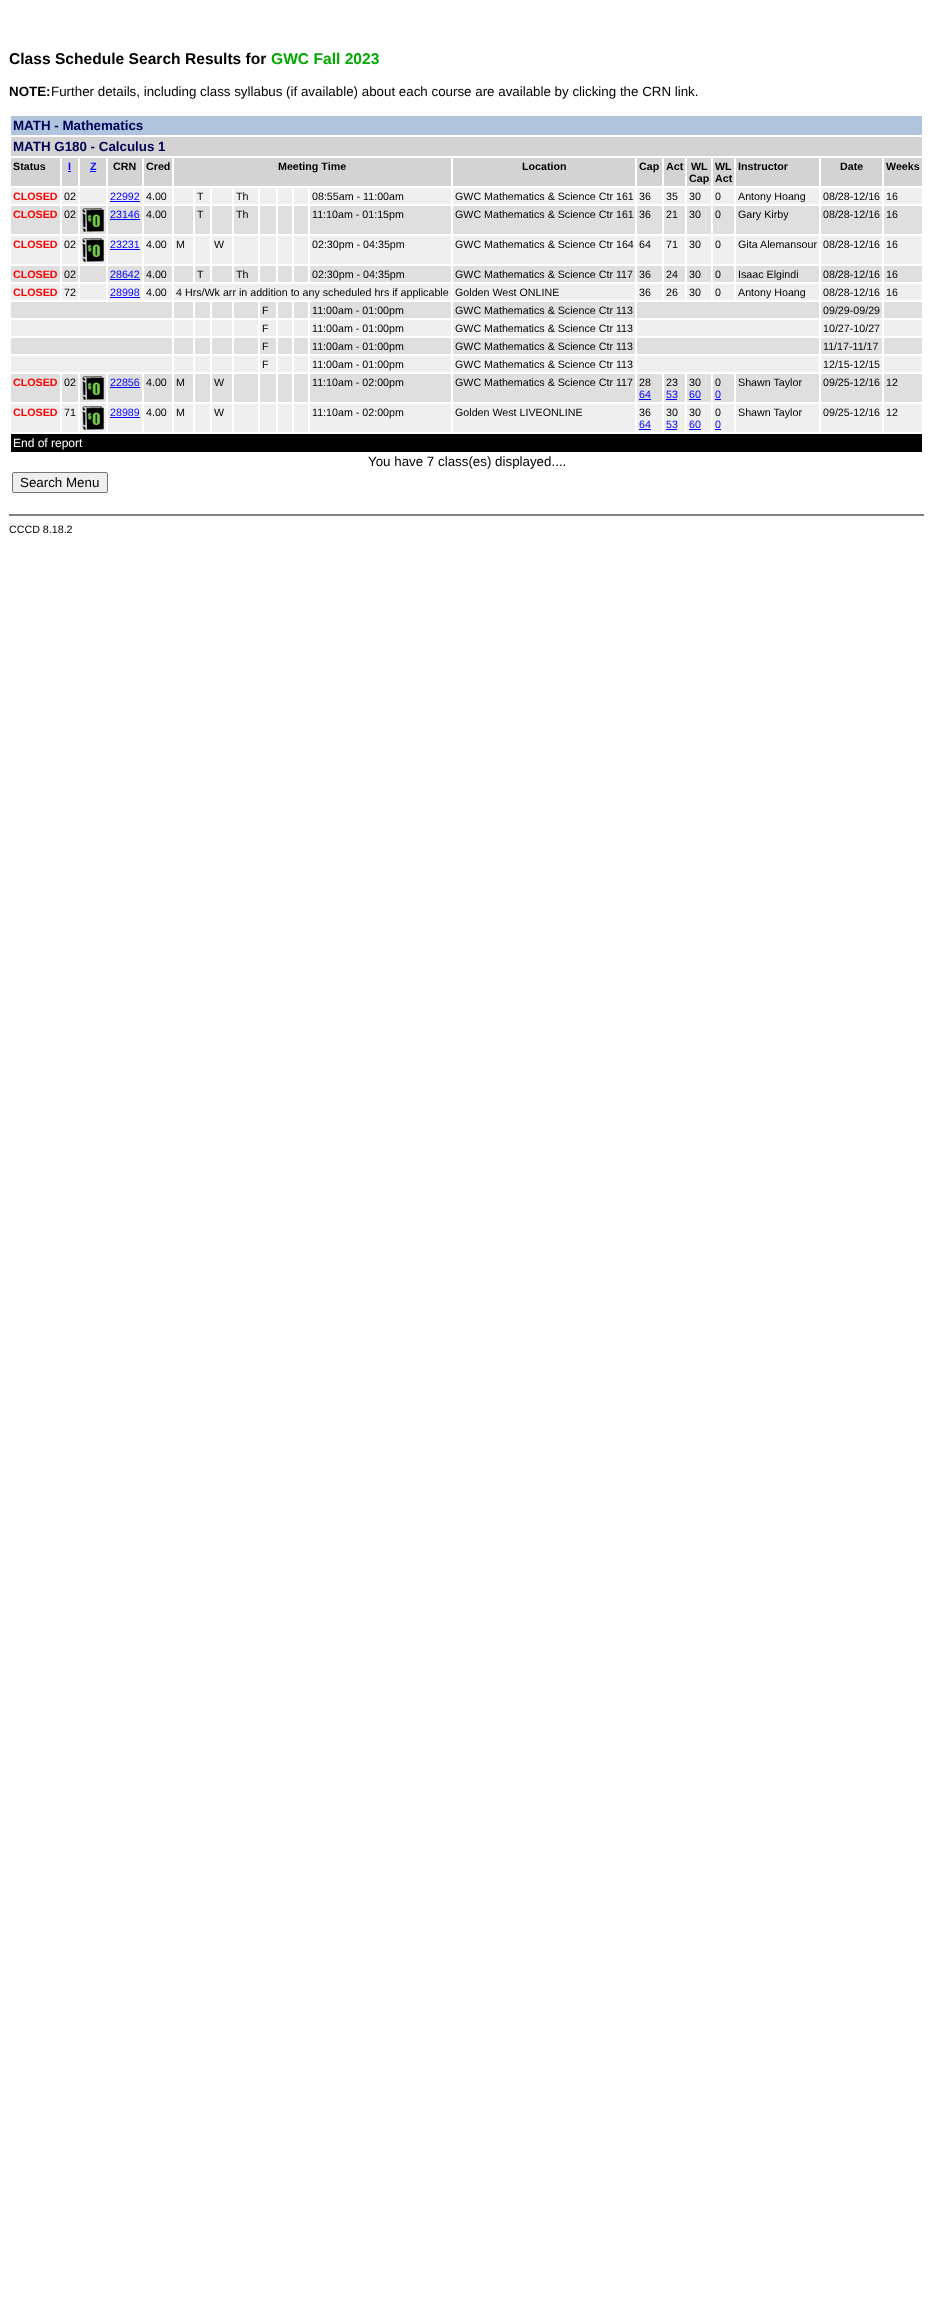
<?xml version="1.0" encoding="UTF-8"?>
<svg xmlns="http://www.w3.org/2000/svg" width="943" height="2300">
    <rect width="100%" height="100%" fill="#FFFFFF"/>
    <text x="9" y="64" font-family="Liberation Sans" font-size="15.6" font-weight="700" fill="#000000">Class Schedule Search Results for</text>
    <text x="271" y="64" font-family="Liberation Sans" font-size="15.6" font-weight="700" fill="#00AA00">GWC Fall 2023</text>
    <text x="9" y="96" font-family="Liberation Sans" font-size="13.35" font-weight="700" fill="#000000">NOTE:</text>
    <text x="51" y="96" font-family="Liberation Sans" font-size="13.35" fill="#000000">Further details, including class syllabus (if available) about each course are available by clicking the CRN link.</text>
    <rect x="11" y="116" width="911" height="19" fill="#B0C4DE"/>
    <text x="13" y="130" font-family="Liberation Sans" font-size="13.35" font-weight="700" fill="#000055">MATH - Mathematics</text>
    <rect x="11" y="137" width="911" height="19" fill="#D3D3D3"/>
    <text x="13" y="151" font-family="Liberation Sans" font-size="13.35" font-weight="700" fill="#000055">MATH G180 - Calculus 1</text>
    <rect x="11" y="158" width="49" height="28" fill="#D3D3D3"/>
    <text x="13" y="170" font-family="Liberation Sans" font-size="10.7" font-weight="700" fill="#000000">Status</text>
    <rect x="62" y="158" width="16" height="28" fill="#D3D3D3"/>
    <text x="68" y="170" font-family="Liberation Sans" font-size="10.7" font-weight="700" fill="#0000FF">I</text>
    <rect x="68" y="171" width="3" height="1" fill="#0000FF"/>
    <rect x="80" y="158" width="26" height="28" fill="#D3D3D3"/>
    <text x="90" y="170" font-family="Liberation Sans" font-size="10.7" font-weight="700" fill="#0000FF">Z</text>
    <rect x="90" y="171" width="6" height="1" fill="#0000FF"/>
    <rect x="108" y="158" width="34" height="28" fill="#D3D3D3"/>
    <text x="113" y="170" font-family="Liberation Sans" font-size="10.7" font-weight="700" fill="#000000">CRN</text>
    <rect x="144" y="158" width="28" height="28" fill="#D3D3D3"/>
    <text x="146" y="170" font-family="Liberation Sans" font-size="10.7" font-weight="700" fill="#000000">Cred</text>
    <rect x="174" y="158" width="277" height="28" fill="#D3D3D3"/>
    <text x="278" y="170" font-family="Liberation Sans" font-size="10.7" font-weight="700" fill="#000000">Meeting Time</text>
    <rect x="453" y="158" width="182" height="28" fill="#D3D3D3"/>
    <text x="522" y="170" font-family="Liberation Sans" font-size="10.7" font-weight="700" fill="#000000">Location</text>
    <rect x="637" y="158" width="25" height="28" fill="#D3D3D3"/>
    <text x="639" y="170" font-family="Liberation Sans" font-size="10.7" font-weight="700" fill="#000000">Cap</text>
    <rect x="664" y="158" width="21" height="28" fill="#D3D3D3"/>
    <text x="666" y="170" font-family="Liberation Sans" font-size="10.7" font-weight="700" fill="#000000">Act</text>
    <rect x="687" y="158" width="24" height="28" fill="#D3D3D3"/>
    <text x="691" y="170" font-family="Liberation Sans" font-size="10.7" font-weight="700" fill="#000000">WL</text>
    <text x="689" y="182" font-family="Liberation Sans" font-size="10.7" font-weight="700" fill="#000000">Cap</text>
    <rect x="713" y="158" width="21" height="28" fill="#D3D3D3"/>
    <text font-family="Liberation Sans" font-size="10.7" font-weight="700" fill="#000000">
        <tspan x="715" y="170">WL</tspan>
        <tspan x="715" y="182">Act</tspan>
    </text>
    <rect x="736" y="158" width="83" height="28" fill="#D3D3D3"/>
    <text x="738" y="170" font-family="Liberation Sans" font-size="10.7" font-weight="700" fill="#000000">Instructor</text>
    <rect x="821" y="158" width="61" height="28" fill="#D3D3D3"/>
    <text x="840" y="170" font-family="Liberation Sans" font-size="10.7" font-weight="700" fill="#000000">Date</text>
    <rect x="884" y="158" width="38" height="28" fill="#D3D3D3"/>
    <text x="886" y="170" font-family="Liberation Sans" font-size="10.7" font-weight="700" fill="#000000">Weeks</text>
    <rect x="11" y="188" width="49" height="16" fill="#EFEFEF"/>
    <text x="13" y="200" font-family="Liberation Sans" font-size="10.7" font-weight="700" fill="#FF0000">CLOSED</text>
    <rect x="62" y="188" width="16" height="16" fill="#EFEFEF"/>
    <text x="64" y="200" font-family="Liberation Sans" font-size="10.7" fill="#000000">02</text>
    <rect x="80" y="188" width="26" height="16" fill="#EFEFEF"/>
    <rect x="108" y="188" width="34" height="16" fill="#EFEFEF"/>
    <text x="110" y="200" font-family="Liberation Sans" font-size="10.7" fill="#0000FF">22992</text>
    <rect x="110" y="201" width="30" height="1" fill="#0000FF"/>
    <rect x="144" y="188" width="28" height="16" fill="#EFEFEF"/>
    <text x="146" y="200" font-family="Liberation Sans" font-size="10.7" fill="#000000">4.00</text>
    <rect x="174" y="188" width="19" height="16" fill="#EFEFEF"/>
    <rect x="195" y="188" width="15" height="16" fill="#EFEFEF"/>
    <text x="197" y="200" font-family="Liberation Sans" font-size="10.7" fill="#000000">T</text>
    <rect x="212" y="188" width="20" height="16" fill="#EFEFEF"/>
    <rect x="234" y="188" width="24" height="16" fill="#EFEFEF"/>
    <text x="236" y="200" font-family="Liberation Sans" font-size="10.7" fill="#000000">Th</text>
    <rect x="260" y="188" width="16" height="16" fill="#EFEFEF"/>
    <rect x="278" y="188" width="14" height="16" fill="#EFEFEF"/>
    <rect x="294" y="188" width="14" height="16" fill="#EFEFEF"/>
    <rect x="310" y="188" width="141" height="16" fill="#EFEFEF"/>
    <text x="312" y="200" font-family="Liberation Sans" font-size="10.7" fill="#000000">08:55am - 11:00am</text>
    <rect x="453" y="188" width="182" height="16" fill="#EFEFEF"/>
    <text x="455" y="200" font-family="Liberation Sans" font-size="10.7" fill="#000000">GWC Mathematics &amp; Science Ctr 161</text>
    <rect x="637" y="188" width="25" height="16" fill="#EFEFEF"/>
    <text x="639" y="200" font-family="Liberation Sans" font-size="10.7" fill="#000000">36</text>
    <rect x="664" y="188" width="21" height="16" fill="#EFEFEF"/>
    <text x="666" y="200" font-family="Liberation Sans" font-size="10.7" fill="#000000">35</text>
    <rect x="687" y="188" width="24" height="16" fill="#EFEFEF"/>
    <text x="689" y="200" font-family="Liberation Sans" font-size="10.7" fill="#000000">30</text>
    <rect x="713" y="188" width="21" height="16" fill="#EFEFEF"/>
    <text x="715" y="200" font-family="Liberation Sans" font-size="10.7" fill="#000000">0</text>
    <rect x="736" y="188" width="83" height="16" fill="#EFEFEF"/>
    <text x="738" y="200" font-family="Liberation Sans" font-size="10.7" fill="#000000">Antony Hoang</text>
    <rect x="821" y="188" width="61" height="16" fill="#EFEFEF"/>
    <text x="823" y="200" font-family="Liberation Sans" font-size="10.7" fill="#000000">08/28-12/16</text>
    <rect x="884" y="188" width="38" height="16" fill="#EFEFEF"/>
    <text x="886" y="200" font-family="Liberation Sans" font-size="10.7" fill="#000000">16</text>
    <rect x="11" y="206" width="49" height="28" fill="#DFDFDF"/>
    <text x="13" y="218" font-family="Liberation Sans" font-size="10.7" font-weight="700" fill="#FF0000">CLOSED</text>
    <rect x="62" y="206" width="16" height="28" fill="#DFDFDF"/>
    <text x="64" y="218" font-family="Liberation Sans" font-size="10.7" fill="#000000">02</text>
    <rect x="80" y="206" width="26" height="28" fill="#DFDFDF"/>
    <image x="82" y="208" width="22" height="24" href="img_01.png"/>
    <rect x="108" y="206" width="34" height="28" fill="#DFDFDF"/>
    <text x="110" y="218" font-family="Liberation Sans" font-size="10.7" fill="#0000FF">23146</text>
    <rect x="110" y="219" width="30" height="1" fill="#0000FF"/>
    <rect x="144" y="206" width="28" height="28" fill="#DFDFDF"/>
    <text x="146" y="218" font-family="Liberation Sans" font-size="10.7" fill="#000000">4.00</text>
    <rect x="174" y="206" width="19" height="28" fill="#DFDFDF"/>
    <rect x="195" y="206" width="15" height="28" fill="#DFDFDF"/>
    <text x="197" y="218" font-family="Liberation Sans" font-size="10.7" fill="#000000">T</text>
    <rect x="212" y="206" width="20" height="28" fill="#DFDFDF"/>
    <rect x="234" y="206" width="24" height="28" fill="#DFDFDF"/>
    <text x="236" y="218" font-family="Liberation Sans" font-size="10.7" fill="#000000">Th</text>
    <rect x="260" y="206" width="16" height="28" fill="#DFDFDF"/>
    <rect x="278" y="206" width="14" height="28" fill="#DFDFDF"/>
    <rect x="294" y="206" width="14" height="28" fill="#DFDFDF"/>
    <rect x="310" y="206" width="141" height="28" fill="#DFDFDF"/>
    <text x="312" y="218" font-family="Liberation Sans" font-size="10.7" fill="#000000">11:10am - 01:15pm</text>
    <rect x="453" y="206" width="182" height="28" fill="#DFDFDF"/>
    <text x="455" y="218" font-family="Liberation Sans" font-size="10.7" fill="#000000">GWC Mathematics &amp; Science Ctr 161</text>
    <rect x="637" y="206" width="25" height="28" fill="#DFDFDF"/>
    <text x="639" y="218" font-family="Liberation Sans" font-size="10.7" fill="#000000">36</text>
    <rect x="664" y="206" width="21" height="28" fill="#DFDFDF"/>
    <text x="666" y="218" font-family="Liberation Sans" font-size="10.7" fill="#000000">21</text>
    <rect x="687" y="206" width="24" height="28" fill="#DFDFDF"/>
    <text x="689" y="218" font-family="Liberation Sans" font-size="10.7" fill="#000000">30</text>
    <rect x="713" y="206" width="21" height="28" fill="#DFDFDF"/>
    <text x="715" y="218" font-family="Liberation Sans" font-size="10.7" fill="#000000">0</text>
    <rect x="736" y="206" width="83" height="28" fill="#DFDFDF"/>
    <text x="738" y="218" font-family="Liberation Sans" font-size="10.7" fill="#000000">Gary Kirby</text>
    <rect x="821" y="206" width="61" height="28" fill="#DFDFDF"/>
    <text x="823" y="218" font-family="Liberation Sans" font-size="10.7" fill="#000000">08/28-12/16</text>
    <rect x="884" y="206" width="38" height="28" fill="#DFDFDF"/>
    <text x="886" y="218" font-family="Liberation Sans" font-size="10.7" fill="#000000">16</text>
    <rect x="11" y="236" width="49" height="28" fill="#EFEFEF"/>
    <text x="13" y="248" font-family="Liberation Sans" font-size="10.7" font-weight="700" fill="#FF0000">CLOSED</text>
    <rect x="62" y="236" width="16" height="28" fill="#EFEFEF"/>
    <text x="64" y="248" font-family="Liberation Sans" font-size="10.7" fill="#000000">02</text>
    <rect x="80" y="236" width="26" height="28" fill="#EFEFEF"/>
    <image x="82" y="238" width="22" height="24" href="img_02.png"/>
    <rect x="108" y="236" width="34" height="28" fill="#EFEFEF"/>
    <text x="110" y="248" font-family="Liberation Sans" font-size="10.7" fill="#0000FF">23231</text>
    <rect x="110" y="249" width="30" height="1" fill="#0000FF"/>
    <rect x="144" y="236" width="28" height="28" fill="#EFEFEF"/>
    <text x="146" y="248" font-family="Liberation Sans" font-size="10.7" fill="#000000">4.00</text>
    <rect x="174" y="236" width="19" height="28" fill="#EFEFEF"/>
    <text x="176" y="248" font-family="Liberation Sans" font-size="10.7" fill="#000000">M</text>
    <rect x="195" y="236" width="15" height="28" fill="#EFEFEF"/>
    <rect x="212" y="236" width="20" height="28" fill="#EFEFEF"/>
    <text x="214" y="248" font-family="Liberation Sans" font-size="10.7" fill="#000000">W</text>
    <rect x="234" y="236" width="24" height="28" fill="#EFEFEF"/>
    <rect x="260" y="236" width="16" height="28" fill="#EFEFEF"/>
    <rect x="278" y="236" width="14" height="28" fill="#EFEFEF"/>
    <rect x="294" y="236" width="14" height="28" fill="#EFEFEF"/>
    <rect x="310" y="236" width="141" height="28" fill="#EFEFEF"/>
    <text x="312" y="248" font-family="Liberation Sans" font-size="10.7" fill="#000000">02:30pm - 04:35pm</text>
    <rect x="453" y="236" width="182" height="28" fill="#EFEFEF"/>
    <text x="455" y="248" font-family="Liberation Sans" font-size="10.7" fill="#000000">GWC Mathematics &amp; Science Ctr 164</text>
    <rect x="637" y="236" width="25" height="28" fill="#EFEFEF"/>
    <text x="639" y="248" font-family="Liberation Sans" font-size="10.7" fill="#000000">64</text>
    <rect x="664" y="236" width="21" height="28" fill="#EFEFEF"/>
    <text x="666" y="248" font-family="Liberation Sans" font-size="10.7" fill="#000000">71</text>
    <rect x="687" y="236" width="24" height="28" fill="#EFEFEF"/>
    <text x="689" y="248" font-family="Liberation Sans" font-size="10.7" fill="#000000">30</text>
    <rect x="713" y="236" width="21" height="28" fill="#EFEFEF"/>
    <text x="715" y="248" font-family="Liberation Sans" font-size="10.7" fill="#000000">0</text>
    <rect x="736" y="236" width="83" height="28" fill="#EFEFEF"/>
    <text x="738" y="248" font-family="Liberation Sans" font-size="10.7" fill="#000000">Gita</text>
    <text x="760" y="248" font-family="Liberation Sans" font-size="10.7" fill="#000000">Alemansour</text>
    <rect x="821" y="236" width="61" height="28" fill="#EFEFEF"/>
    <text x="823" y="248" font-family="Liberation Sans" font-size="10.7" fill="#000000">08/28-12/16</text>
    <rect x="884" y="236" width="38" height="28" fill="#EFEFEF"/>
    <text x="886" y="248" font-family="Liberation Sans" font-size="10.7" fill="#000000">16</text>
    <rect x="11" y="266" width="49" height="16" fill="#DFDFDF"/>
    <text x="13" y="278" font-family="Liberation Sans" font-size="10.7" font-weight="700" fill="#FF0000">CLOSED</text>
    <rect x="62" y="266" width="16" height="16" fill="#DFDFDF"/>
    <text x="64" y="278" font-family="Liberation Sans" font-size="10.7" fill="#000000">02</text>
    <rect x="80" y="266" width="26" height="16" fill="#DFDFDF"/>
    <rect x="108" y="266" width="34" height="16" fill="#DFDFDF"/>
    <text x="110" y="278" font-family="Liberation Sans" font-size="10.7" fill="#0000FF">28642</text>
    <rect x="110" y="279" width="30" height="1" fill="#0000FF"/>
    <rect x="144" y="266" width="28" height="16" fill="#DFDFDF"/>
    <text x="146" y="278" font-family="Liberation Sans" font-size="10.7" fill="#000000">4.00</text>
    <rect x="174" y="266" width="19" height="16" fill="#DFDFDF"/>
    <rect x="195" y="266" width="15" height="16" fill="#DFDFDF"/>
    <text x="197" y="278" font-family="Liberation Sans" font-size="10.7" fill="#000000">T</text>
    <rect x="212" y="266" width="20" height="16" fill="#DFDFDF"/>
    <rect x="234" y="266" width="24" height="16" fill="#DFDFDF"/>
    <text x="236" y="278" font-family="Liberation Sans" font-size="10.7" fill="#000000">Th</text>
    <rect x="260" y="266" width="16" height="16" fill="#DFDFDF"/>
    <rect x="278" y="266" width="14" height="16" fill="#DFDFDF"/>
    <rect x="294" y="266" width="14" height="16" fill="#DFDFDF"/>
    <rect x="310" y="266" width="141" height="16" fill="#DFDFDF"/>
    <text x="312" y="278" font-family="Liberation Sans" font-size="10.7" fill="#000000">02:30pm - 04:35pm</text>
    <rect x="453" y="266" width="182" height="16" fill="#DFDFDF"/>
    <text x="455" y="278" font-family="Liberation Sans" font-size="10.7" fill="#000000">GWC Mathematics &amp; Science Ctr 117</text>
    <rect x="637" y="266" width="25" height="16" fill="#DFDFDF"/>
    <text x="639" y="278" font-family="Liberation Sans" font-size="10.7" fill="#000000">36</text>
    <rect x="664" y="266" width="21" height="16" fill="#DFDFDF"/>
    <text x="666" y="278" font-family="Liberation Sans" font-size="10.7" fill="#000000">24</text>
    <rect x="687" y="266" width="24" height="16" fill="#DFDFDF"/>
    <text x="689" y="278" font-family="Liberation Sans" font-size="10.7" fill="#000000">30</text>
    <rect x="713" y="266" width="21" height="16" fill="#DFDFDF"/>
    <text x="715" y="278" font-family="Liberation Sans" font-size="10.7" fill="#000000">0</text>
    <rect x="736" y="266" width="83" height="16" fill="#DFDFDF"/>
    <text x="738" y="278" font-family="Liberation Sans" font-size="10.7" fill="#000000">Isaac Elgindi</text>
    <rect x="821" y="266" width="61" height="16" fill="#DFDFDF"/>
    <text x="823" y="278" font-family="Liberation Sans" font-size="10.7" fill="#000000">08/28-12/16</text>
    <rect x="884" y="266" width="38" height="16" fill="#DFDFDF"/>
    <text x="886" y="278" font-family="Liberation Sans" font-size="10.7" fill="#000000">16</text>
    <rect x="11" y="284" width="49" height="16" fill="#EFEFEF"/>
    <text x="13" y="296" font-family="Liberation Sans" font-size="10.7" font-weight="700" fill="#FF0000">CLOSED</text>
    <rect x="62" y="284" width="16" height="16" fill="#EFEFEF"/>
    <text x="64" y="296" font-family="Liberation Sans" font-size="10.7" fill="#000000">72</text>
    <rect x="80" y="284" width="26" height="16" fill="#EFEFEF"/>
    <rect x="108" y="284" width="34" height="16" fill="#EFEFEF"/>
    <text x="110" y="296" font-family="Liberation Sans" font-size="10.7" fill="#0000FF">28998</text>
    <rect x="110" y="297" width="30" height="1" fill="#0000FF"/>
    <rect x="144" y="284" width="28" height="16" fill="#EFEFEF"/>
    <text x="146" y="296" font-family="Liberation Sans" font-size="10.7" fill="#000000">4.00</text>
    <rect x="174" y="284" width="277" height="16" fill="#EFEFEF"/>
    <text x="176" y="296" font-family="Liberation Sans" font-size="10.7" fill="#000000">4 Hrs/Wk arr in addition to any scheduled hrs if applicable</text>
    <rect x="453" y="284" width="182" height="16" fill="#EFEFEF"/>
    <text x="455" y="296" font-family="Liberation Sans" font-size="10.7" fill="#000000">Golden West ONLINE</text>
    <rect x="637" y="284" width="25" height="16" fill="#EFEFEF"/>
    <text x="639" y="296" font-family="Liberation Sans" font-size="10.7" fill="#000000">36</text>
    <rect x="664" y="284" width="21" height="16" fill="#EFEFEF"/>
    <text x="666" y="296" font-family="Liberation Sans" font-size="10.7" fill="#000000">26</text>
    <rect x="687" y="284" width="24" height="16" fill="#EFEFEF"/>
    <text x="689" y="296" font-family="Liberation Sans" font-size="10.7" fill="#000000">30</text>
    <rect x="713" y="284" width="21" height="16" fill="#EFEFEF"/>
    <text x="715" y="296" font-family="Liberation Sans" font-size="10.7" fill="#000000">0</text>
    <rect x="736" y="284" width="83" height="16" fill="#EFEFEF"/>
    <text x="738" y="296" font-family="Liberation Sans" font-size="10.7" fill="#000000">Antony Hoang</text>
    <rect x="821" y="284" width="61" height="16" fill="#EFEFEF"/>
    <text x="823" y="296" font-family="Liberation Sans" font-size="10.7" fill="#000000">08/28-12/16</text>
    <rect x="884" y="284" width="38" height="16" fill="#EFEFEF"/>
    <text x="886" y="296" font-family="Liberation Sans" font-size="10.7" fill="#000000">16</text>
    <rect x="11" y="302" width="161" height="16" fill="#DFDFDF"/>
    <rect x="174" y="302" width="19" height="16" fill="#DFDFDF"/>
    <rect x="195" y="302" width="15" height="16" fill="#DFDFDF"/>
    <rect x="212" y="302" width="20" height="16" fill="#DFDFDF"/>
    <rect x="234" y="302" width="24" height="16" fill="#DFDFDF"/>
    <rect x="260" y="302" width="16" height="16" fill="#DFDFDF"/>
    <text x="262" y="314" font-family="Liberation Sans" font-size="10.7" fill="#000000">F</text>
    <rect x="278" y="302" width="14" height="16" fill="#DFDFDF"/>
    <rect x="294" y="302" width="14" height="16" fill="#DFDFDF"/>
    <rect x="310" y="302" width="141" height="16" fill="#DFDFDF"/>
    <text x="312" y="314" font-family="Liberation Sans" font-size="10.7" fill="#000000">11:00am - 01:00pm</text>
    <rect x="453" y="302" width="182" height="16" fill="#DFDFDF"/>
    <text x="455" y="314" font-family="Liberation Sans" font-size="10.7" fill="#000000">GWC Mathematics &amp; Science Ctr 113</text>
    <rect x="637" y="302" width="182" height="16" fill="#DFDFDF"/>
    <rect x="821" y="302" width="61" height="16" fill="#DFDFDF"/>
    <text x="823" y="314" font-family="Liberation Sans" font-size="10.7" fill="#000000">09/29-09/29</text>
    <rect x="884" y="302" width="38" height="16" fill="#DFDFDF"/>
    <rect x="11" y="320" width="161" height="16" fill="#EFEFEF"/>
    <rect x="174" y="320" width="19" height="16" fill="#EFEFEF"/>
    <rect x="195" y="320" width="15" height="16" fill="#EFEFEF"/>
    <rect x="212" y="320" width="20" height="16" fill="#EFEFEF"/>
    <rect x="234" y="320" width="24" height="16" fill="#EFEFEF"/>
    <rect x="260" y="320" width="16" height="16" fill="#EFEFEF"/>
    <text x="262" y="332" font-family="Liberation Sans" font-size="10.7" fill="#000000">F</text>
    <rect x="278" y="320" width="14" height="16" fill="#EFEFEF"/>
    <rect x="294" y="320" width="14" height="16" fill="#EFEFEF"/>
    <rect x="310" y="320" width="141" height="16" fill="#EFEFEF"/>
    <text x="312" y="332" font-family="Liberation Sans" font-size="10.7" fill="#000000">11:00am - 01:00pm</text>
    <rect x="453" y="320" width="182" height="16" fill="#EFEFEF"/>
    <text x="455" y="332" font-family="Liberation Sans" font-size="10.7" fill="#000000">GWC Mathematics &amp; Science Ctr 113</text>
    <rect x="637" y="320" width="182" height="16" fill="#EFEFEF"/>
    <rect x="821" y="320" width="61" height="16" fill="#EFEFEF"/>
    <text x="823" y="332" font-family="Liberation Sans" font-size="10.7" fill="#000000">10/27-10/27</text>
    <rect x="884" y="320" width="38" height="16" fill="#EFEFEF"/>
    <rect x="11" y="338" width="161" height="16" fill="#DFDFDF"/>
    <rect x="174" y="338" width="19" height="16" fill="#DFDFDF"/>
    <rect x="195" y="338" width="15" height="16" fill="#DFDFDF"/>
    <rect x="212" y="338" width="20" height="16" fill="#DFDFDF"/>
    <rect x="234" y="338" width="24" height="16" fill="#DFDFDF"/>
    <rect x="260" y="338" width="16" height="16" fill="#DFDFDF"/>
    <text x="262" y="350" font-family="Liberation Sans" font-size="10.7" fill="#000000">F</text>
    <rect x="278" y="338" width="14" height="16" fill="#DFDFDF"/>
    <rect x="294" y="338" width="14" height="16" fill="#DFDFDF"/>
    <rect x="310" y="338" width="141" height="16" fill="#DFDFDF"/>
    <text x="312" y="350" font-family="Liberation Sans" font-size="10.7" fill="#000000">11:00am - 01:00pm</text>
    <rect x="453" y="338" width="182" height="16" fill="#DFDFDF"/>
    <text x="455" y="350" font-family="Liberation Sans" font-size="10.7" fill="#000000">GWC Mathematics &amp; Science Ctr 113</text>
    <rect x="637" y="338" width="182" height="16" fill="#DFDFDF"/>
    <rect x="821" y="338" width="61" height="16" fill="#DFDFDF"/>
    <text x="823" y="350" font-family="Liberation Sans" font-size="10.7" fill="#000000">11/17-11/17</text>
    <rect x="884" y="338" width="38" height="16" fill="#DFDFDF"/>
    <rect x="11" y="356" width="161" height="16" fill="#EFEFEF"/>
    <rect x="174" y="356" width="19" height="16" fill="#EFEFEF"/>
    <rect x="195" y="356" width="15" height="16" fill="#EFEFEF"/>
    <rect x="212" y="356" width="20" height="16" fill="#EFEFEF"/>
    <rect x="234" y="356" width="24" height="16" fill="#EFEFEF"/>
    <rect x="260" y="356" width="16" height="16" fill="#EFEFEF"/>
    <text x="262" y="368" font-family="Liberation Sans" font-size="10.7" fill="#000000">F</text>
    <rect x="278" y="356" width="14" height="16" fill="#EFEFEF"/>
    <rect x="294" y="356" width="14" height="16" fill="#EFEFEF"/>
    <rect x="310" y="356" width="141" height="16" fill="#EFEFEF"/>
    <text x="312" y="368" font-family="Liberation Sans" font-size="10.7" fill="#000000">11:00am - 01:00pm</text>
    <rect x="453" y="356" width="182" height="16" fill="#EFEFEF"/>
    <text x="455" y="368" font-family="Liberation Sans" font-size="10.7" fill="#000000">GWC Mathematics &amp; Science Ctr 113</text>
    <rect x="637" y="356" width="182" height="16" fill="#EFEFEF"/>
    <rect x="821" y="356" width="61" height="16" fill="#EFEFEF"/>
    <text x="823" y="368" font-family="Liberation Sans" font-size="10.7" fill="#000000">12/15-12/15</text>
    <rect x="884" y="356" width="38" height="16" fill="#EFEFEF"/>
    <rect x="11" y="374" width="49" height="28" fill="#DFDFDF"/>
    <text x="13" y="386" font-family="Liberation Sans" font-size="10.7" font-weight="700" fill="#FF0000">CLOSED</text>
    <rect x="62" y="374" width="16" height="28" fill="#DFDFDF"/>
    <text x="64" y="386" font-family="Liberation Sans" font-size="10.7" fill="#000000">02</text>
    <rect x="80" y="374" width="26" height="28" fill="#DFDFDF"/>
    <image x="82" y="376" width="22" height="24" href="img_01.png"/>
    <rect x="108" y="374" width="34" height="28" fill="#DFDFDF"/>
    <text x="110" y="386" font-family="Liberation Sans" font-size="10.7" fill="#0000FF">22856</text>
    <rect x="110" y="387" width="30" height="1" fill="#0000FF"/>
    <rect x="144" y="374" width="28" height="28" fill="#DFDFDF"/>
    <text x="146" y="386" font-family="Liberation Sans" font-size="10.7" fill="#000000">4.00</text>
    <rect x="174" y="374" width="19" height="28" fill="#DFDFDF"/>
    <text x="176" y="386" font-family="Liberation Sans" font-size="10.7" fill="#000000">M</text>
    <rect x="195" y="374" width="15" height="28" fill="#DFDFDF"/>
    <rect x="212" y="374" width="20" height="28" fill="#DFDFDF"/>
    <text x="214" y="386" font-family="Liberation Sans" font-size="10.7" fill="#000000">W</text>
    <rect x="234" y="374" width="24" height="28" fill="#DFDFDF"/>
    <rect x="260" y="374" width="16" height="28" fill="#DFDFDF"/>
    <rect x="278" y="374" width="14" height="28" fill="#DFDFDF"/>
    <rect x="294" y="374" width="14" height="28" fill="#DFDFDF"/>
    <rect x="310" y="374" width="141" height="28" fill="#DFDFDF"/>
    <text x="312" y="386" font-family="Liberation Sans" font-size="10.7" fill="#000000">11:10am - 02:00pm</text>
    <rect x="453" y="374" width="182" height="28" fill="#DFDFDF"/>
    <text x="455" y="386" font-family="Liberation Sans" font-size="10.7" fill="#000000">GWC Mathematics &amp; Science Ctr 117</text>
    <rect x="637" y="374" width="25" height="28" fill="#DFDFDF"/>
    <text x="639" y="386" font-family="Liberation Sans" font-size="10.7" fill="#000000">28</text>
    <text x="639" y="398" font-family="Liberation Sans" font-size="10.7" fill="#0000FF">64</text>
    <rect x="639" y="399" width="12" height="1" fill="#0000FF"/>
    <rect x="664" y="374" width="21" height="28" fill="#DFDFDF"/>
    <text x="666" y="386" font-family="Liberation Sans" font-size="10.7" fill="#000000">23</text>
    <text x="666" y="398" font-family="Liberation Sans" font-size="10.7" fill="#0000FF">53</text>
    <rect x="666" y="399" width="11" height="1" fill="#0000FF"/>
    <rect x="687" y="374" width="24" height="28" fill="#DFDFDF"/>
    <text x="689" y="386" font-family="Liberation Sans" font-size="10.7" fill="#000000">30</text>
    <text x="689" y="398" font-family="Liberation Sans" font-size="10.7" fill="#0000FF">60</text>
    <rect x="689" y="399" width="12" height="1" fill="#0000FF"/>
    <rect x="713" y="374" width="21" height="28" fill="#DFDFDF"/>
    <text x="715" y="386" font-family="Liberation Sans" font-size="10.7" fill="#000000">0</text>
    <text x="715" y="398" font-family="Liberation Sans" font-size="10.7" fill="#0000FF">0</text>
    <rect x="715" y="399" width="6" height="1" fill="#0000FF"/>
    <rect x="736" y="374" width="83" height="28" fill="#DFDFDF"/>
    <text x="738" y="386" font-family="Liberation Sans" font-size="10.7" fill="#000000">Shawn Taylor</text>
    <rect x="821" y="374" width="61" height="28" fill="#DFDFDF"/>
    <text x="823" y="386" font-family="Liberation Sans" font-size="10.7" fill="#000000">09/25-12/16</text>
    <rect x="884" y="374" width="38" height="28" fill="#DFDFDF"/>
    <text x="886" y="386" font-family="Liberation Sans" font-size="10.7" fill="#000000">12</text>
    <rect x="11" y="404" width="49" height="28" fill="#EFEFEF"/>
    <text x="13" y="416" font-family="Liberation Sans" font-size="10.7" font-weight="700" fill="#FF0000">CLOSED</text>
    <rect x="62" y="404" width="16" height="28" fill="#EFEFEF"/>
    <text x="64" y="416" font-family="Liberation Sans" font-size="10.7" fill="#000000">71</text>
    <rect x="80" y="404" width="26" height="28" fill="#EFEFEF"/>
    <image x="82" y="406" width="22" height="24" href="img_02.png"/>
    <rect x="108" y="404" width="34" height="28" fill="#EFEFEF"/>
    <text x="110" y="416" font-family="Liberation Sans" font-size="10.7" fill="#0000FF">28989</text>
    <rect x="110" y="417" width="30" height="1" fill="#0000FF"/>
    <rect x="144" y="404" width="28" height="28" fill="#EFEFEF"/>
    <text x="146" y="416" font-family="Liberation Sans" font-size="10.7" fill="#000000">4.00</text>
    <rect x="174" y="404" width="19" height="28" fill="#EFEFEF"/>
    <text x="176" y="416" font-family="Liberation Sans" font-size="10.7" fill="#000000">M</text>
    <rect x="195" y="404" width="15" height="28" fill="#EFEFEF"/>
    <rect x="212" y="404" width="20" height="28" fill="#EFEFEF"/>
    <text x="214" y="416" font-family="Liberation Sans" font-size="10.7" fill="#000000">W</text>
    <rect x="234" y="404" width="24" height="28" fill="#EFEFEF"/>
    <rect x="260" y="404" width="16" height="28" fill="#EFEFEF"/>
    <rect x="278" y="404" width="14" height="28" fill="#EFEFEF"/>
    <rect x="294" y="404" width="14" height="28" fill="#EFEFEF"/>
    <rect x="310" y="404" width="141" height="28" fill="#EFEFEF"/>
    <text x="312" y="416" font-family="Liberation Sans" font-size="10.7" fill="#000000">11:10am - 02:00pm</text>
    <rect x="453" y="404" width="182" height="28" fill="#EFEFEF"/>
    <text x="455" y="416" font-family="Liberation Sans" font-size="10.7" fill="#000000">Golden West LIVEONLINE</text>
    <rect x="637" y="404" width="25" height="28" fill="#EFEFEF"/>
    <text x="639" y="416" font-family="Liberation Sans" font-size="10.7" fill="#000000">36</text>
    <text x="639" y="428" font-family="Liberation Sans" font-size="10.7" fill="#0000FF">64</text>
    <rect x="639" y="429" width="12" height="1" fill="#0000FF"/>
    <rect x="664" y="404" width="21" height="28" fill="#EFEFEF"/>
    <text x="666" y="416" font-family="Liberation Sans" font-size="10.7" fill="#000000">30</text>
    <text x="666" y="428" font-family="Liberation Sans" font-size="10.7" fill="#0000FF">53</text>
    <rect x="666" y="429" width="11" height="1" fill="#0000FF"/>
    <rect x="687" y="404" width="24" height="28" fill="#EFEFEF"/>
    <text x="689" y="416" font-family="Liberation Sans" font-size="10.7" fill="#000000">30</text>
    <text x="689" y="428" font-family="Liberation Sans" font-size="10.7" fill="#0000FF">60</text>
    <rect x="689" y="429" width="12" height="1" fill="#0000FF"/>
    <rect x="713" y="404" width="21" height="28" fill="#EFEFEF"/>
    <text x="715" y="416" font-family="Liberation Sans" font-size="10.7" fill="#000000">0</text>
    <text x="715" y="428" font-family="Liberation Sans" font-size="10.7" fill="#0000FF">0</text>
    <rect x="715" y="429" width="6" height="1" fill="#0000FF"/>
    <rect x="736" y="404" width="83" height="28" fill="#EFEFEF"/>
    <text x="738" y="416" font-family="Liberation Sans" font-size="10.7" fill="#000000">Shawn Taylor</text>
    <rect x="821" y="404" width="61" height="28" fill="#EFEFEF"/>
    <text x="823" y="416" font-family="Liberation Sans" font-size="10.7" fill="#000000">09/25-12/16</text>
    <rect x="884" y="404" width="38" height="28" fill="#EFEFEF"/>
    <text x="886" y="416" font-family="Liberation Sans" font-size="10.7" fill="#000000">12</text>
    <rect x="11" y="434" width="911" height="18" fill="#000000"/>
    <text x="13" y="447" font-family="Liberation Sans" font-size="12" fill="#FFFFFF">End of report</text>
    <text x="368" y="466" font-family="Liberation Sans" font-size="13.35" fill="#000000">You have 7 class(es) displayed....</text>
    <rect x="12.5" y="472.5" width="95" height="20" rx="1.5" fill="#EFEFEF" stroke="#767676"/>
    <text x="20" y="487" font-family="Liberation Sans" font-size="13.35" fill="#000000">Search Menu</text>
    <rect x="9" y="514" width="915" height="2" fill="#808080"/>
    <text x="9" y="533" font-family="Liberation Sans" font-size="10.7" fill="#000000">CCCD 8.18.2</text>
</svg>
